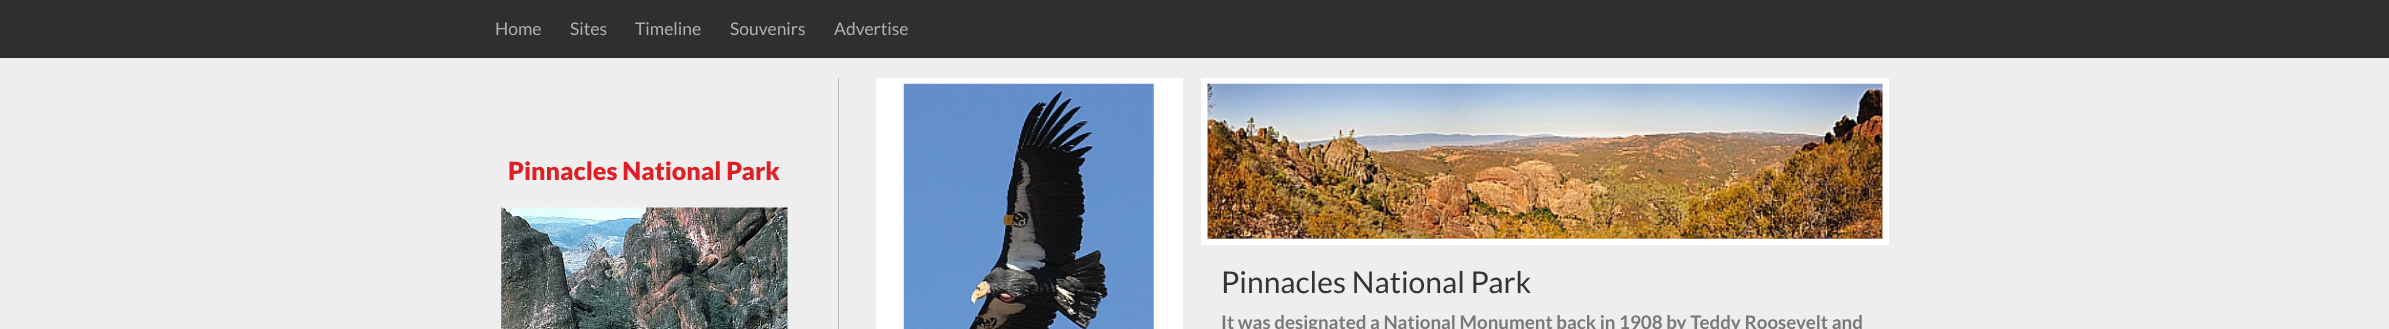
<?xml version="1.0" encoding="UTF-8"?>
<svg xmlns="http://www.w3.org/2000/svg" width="2389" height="329">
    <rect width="100%" height="100%" fill="#2F2F2F"/>
    <text x="495" y="35" font-family="Lato" font-size="17.5" fill="#AFAFAF">Home</text>
    <text x="570" y="35" font-family="Lato" font-size="17.5" fill="#AFAFAF">Sites</text>
    <text x="635" y="35" font-family="Lato" font-size="17.5" fill="#AFAFAF">Timeline</text>
    <text x="730" y="35" font-family="Lato" font-size="17.5" fill="#AFAFAF">Souvenirs</text>
    <text x="834" y="35" font-family="Lato" font-size="17.5" fill="#AFAFAF">Advertise</text>
    <rect x="0" y="58" width="2389" height="271" fill="#EEEEEE"/>
    <rect x="838" y="78" width="1" height="251" fill="#B8B8B8"/>
    <text x="508" y="180" font-family="Lato" font-size="25" font-weight="900" fill="#DF1F26">Pinnacles National Park</text>
    <image x="501" y="207" width="287" height="122" href="img_01.png"/>
    <rect x="876" y="78" width="307" height="251" fill="#FFFFFF"/>
    <image x="903" y="83" width="251" height="246" href="img_02.png"/>
    <rect x="1201" y="78" width="688" height="167" fill="#FFFFFF"/>
    <image x="1207" y="83" width="676" height="156" href="img_03.png"/>
    <text x="1221" y="293" font-family="Lato" font-size="30" fill="#333333">Pinnacles National Park</text>
    <text x="1221" y="329" font-family="Lato" font-size="18.75" font-weight="700" fill="#797979">It was designated a National Monument back in 1908 by Teddy Roosevelt and</text>
</svg>
